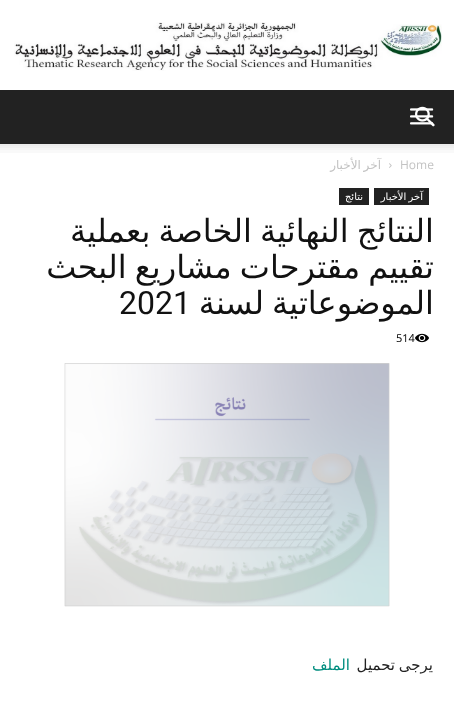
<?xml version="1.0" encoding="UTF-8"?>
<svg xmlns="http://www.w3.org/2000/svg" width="454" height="726">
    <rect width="100%" height="100%" fill="#FFFFFF"/>
    <image x="14" y="22" width="428" height="49" href="img_01.png"/>
    <rect x="0" y="90" width="454" height="54" fill="#222222"/>
    <image x="410" y="108" width="24" height="17" href="img_03.png"/>
    <image x="415" y="106" width="20" height="21" href="img_02.png"/>
    <image x="0" y="144" width="454" height="9" href="img_04.png"/>
    <text x="400" y="169" font-family="Open Sans" font-size="12" fill="#C3C3C3">Home</text>
    <image x="389" y="163" width="3" height="5" href="img_05.png"/>
    <text x="381" y="169" word-spacing="-1" font-family="DejaVu Sans" font-size="12" direction="rtl" fill="#C3C3C3">آخر الأخبار</text>
    <rect x="374" y="188" width="55" height="17" fill="#222222"/>
    <text x="423" y="200" word-spacing="-1" font-family="DejaVu Sans" font-size="10" direction="rtl" fill="#FFFFFF">آخر الأخبار</text>
    <rect x="339" y="188" width="30" height="17" fill="#222222"/>
    <text x="363" y="200" font-family="DejaVu Sans" font-size="10" direction="rtl" fill="#FFFFFF">نتائج</text>
    <text font-family="DejaVu Sans" font-size="32" direction="rtl" fill="#111111">
        <tspan x="434" y="242" word-spacing="-2">النتائج النهائية الخاصة بعملية</tspan>
        <tspan x="434" y="278" word-spacing="-2">تقييم مقترحات مشاريع البحث</tspan>
        <tspan x="434" y="314" word-spacing="-2">الموضوعاتية لسنة</tspan>
    </text>
    <text x="119" y="314" font-family="Roboto" font-size="32" fill="#111111">2021</text>
    <image x="415" y="333" width="14" height="10" href="img_06.png"/>
    <text x="396" y="342" font-family="Open Sans" font-size="11" fill="#000000">514</text>
    <image x="64" y="363" width="326" height="244" href="img_07.png"/>
    <text x="433" y="670" word-spacing="-1" font-family="DejaVu Sans" font-size="15" direction="rtl" fill="#222222">يرجى تحميل</text>
    <text x="350" y="670" font-family="DejaVu Sans" font-size="15" direction="rtl" fill="#008D7F">الملف</text>
</svg>
